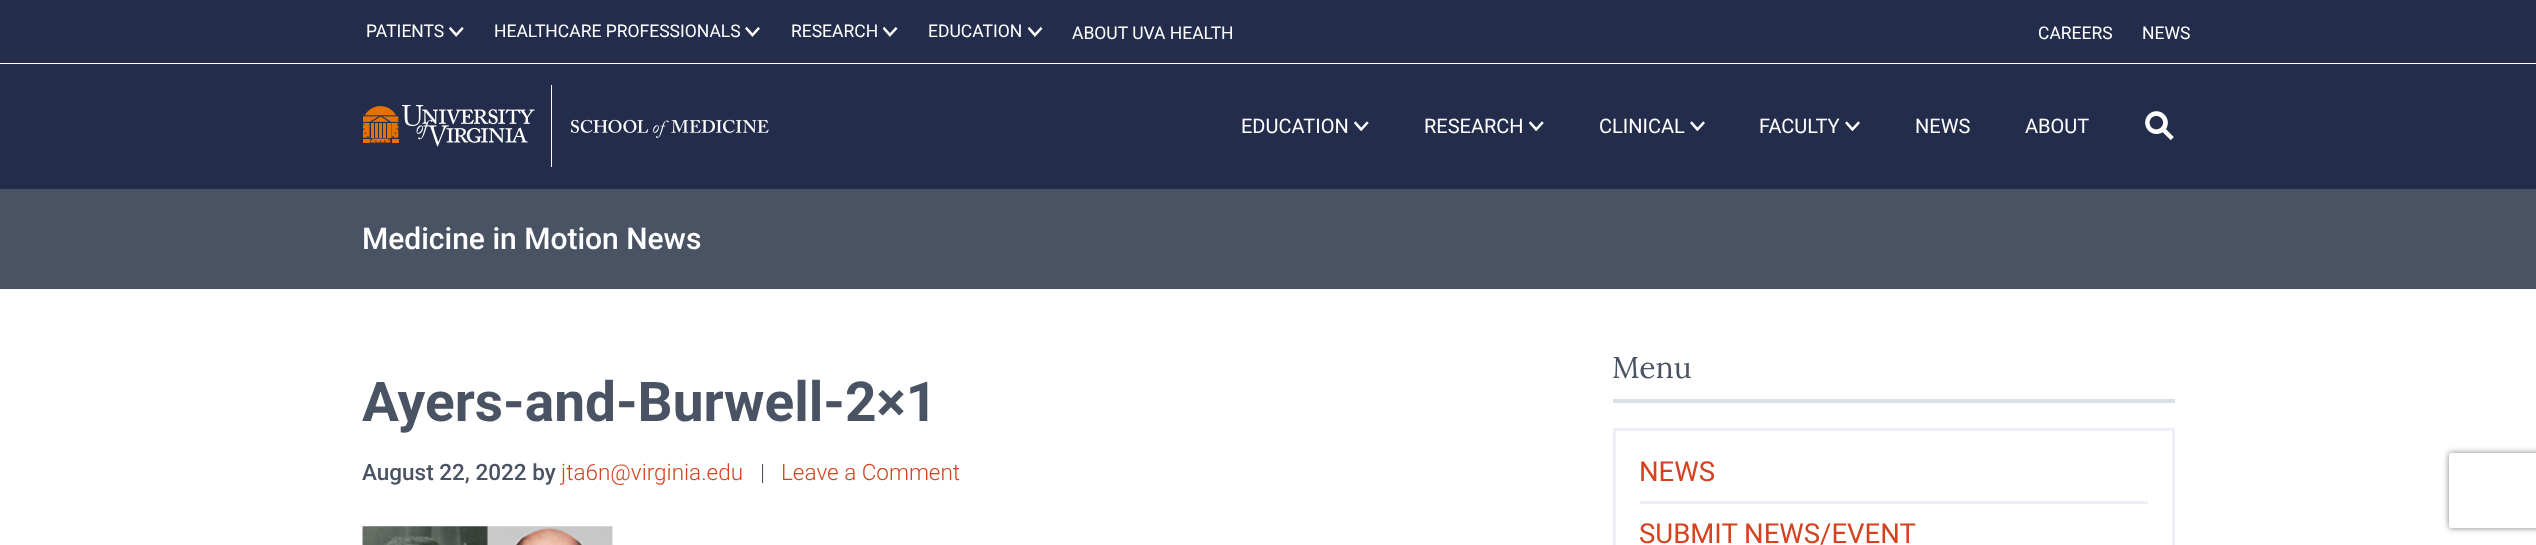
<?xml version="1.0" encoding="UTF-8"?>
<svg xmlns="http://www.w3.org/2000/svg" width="2536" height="545">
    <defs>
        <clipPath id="clip1"><path d="M 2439 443 H 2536 V 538 H 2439 Z M 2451.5 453 H 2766.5 C 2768 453 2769 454 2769 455.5 V 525.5 C 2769 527 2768 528 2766.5 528 H 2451.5 C 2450 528 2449 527 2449 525.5 V 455.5 C 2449 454 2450 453 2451.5 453 Z" clip-rule="evenodd"/></clipPath>
        <filter id="blur1" x="-50%" y="-200%" width="200%" height="500%"><feGaussianBlur stdDeviation="3"/></filter>
    </defs>
    <rect width="100%" height="100%" fill="#FFFFFF"/>
    <rect x="0" y="0" width="2536" height="189" fill="#232D4B"/>
    <rect x="0" y="63" width="2536" height="1" fill="#FFFFFF"/>
    <text x="366" y="37" font-family="Roboto" font-size="17.5" fill="#FFFFFF">PATIENTS</text>
    <image x="449" y="26" width="15" height="11" href="img_01.png"/>
    <text x="494" y="37" font-family="Roboto" font-size="17.5" fill="#FFFFFF">HEALTHCARE PROFESSIONALS</text>
    <image x="745" y="26" width="15" height="11" href="img_02.png"/>
    <text x="791" y="37" font-family="Roboto" font-size="17.5" fill="#FFFFFF">RESEARCH</text>
    <image x="883" y="26" width="15" height="11" href="img_03.png"/>
    <text x="928" y="37" font-family="Roboto" font-size="17.5" fill="#FFFFFF">EDUCATION</text>
    <image x="1028" y="26" width="15" height="11" href="img_03.png"/>
    <text x="1072" y="39" font-family="Roboto" font-size="17.5" fill="#FFFFFF">ABOUT UVA HEALTH</text>
    <text x="2038" y="39" font-family="Roboto" font-size="17.5" fill="#FFFFFF">CAREERS</text>
    <text x="2142" y="39" font-family="Roboto" font-size="17.5" fill="#FFFFFF">NEWS</text>
    <image x="363" y="85" width="406" height="82" href="img_04.png"/>
    <text x="1241" y="133" font-family="Roboto" font-size="20" fill="#FFFFFF">EDUCATION</text>
    <image x="1354" y="121" width="15" height="10" href="img_05.png"/>
    <text x="1424" y="133" font-family="Roboto" font-size="20" fill="#FFFFFF">RESEARCH</text>
    <image x="1529" y="121" width="15" height="10" href="img_05.png"/>
    <text x="1599" y="133" font-family="Roboto" font-size="20" fill="#FFFFFF">CLINICAL</text>
    <image x="1690" y="121" width="15" height="10" href="img_06.png"/>
    <text x="1759" y="133" font-family="Roboto" font-size="20" fill="#FFFFFF">FACULTY</text>
    <image x="1845" y="121" width="15" height="10" href="img_06.png"/>
    <text x="1915" y="133" font-family="Roboto" font-size="20" fill="#FFFFFF">NEWS</text>
    <text x="2025" y="133" font-family="Roboto" font-size="20" fill="#FFFFFF">ABOUT</text>
    <image x="2145" y="111" width="29" height="30" href="img_07.png"/>
    <rect x="0" y="189" width="2536" height="100" fill="#4A5363"/>
    <text x="362" y="249" font-family="Roboto" font-size="30" font-weight="500" fill="#FFFFFF">Medicine in Motion News</text>
    <text x="362" y="421" font-family="Roboto" font-size="55" font-weight="700" fill="#4A5363">Ayers-and-Burwell-2×1</text>
    <text x="362" y="480" font-family="Roboto" font-size="22.5" font-weight="500" fill="#4A5363">August 22, 2022 by</text>
    <text x="561" y="480" font-family="Roboto" font-size="22.5" font-weight="300" fill="#D4421E">jta6n@virginia.edu</text>
    <text x="760" y="480" font-family="Roboto" font-size="22.5" font-weight="300" fill="#4A5363">|</text>
    <text x="781" y="480" font-family="Roboto" font-size="22.5" font-weight="300" fill="#D4421E">Leave a Comment</text>
    <image x="362" y="526" width="251" height="19" href="img_08.png"/>
    <rect x="1613" y="399" width="562" height="4" fill="#DBDFE6"/>
    <text x="1612" y="378" font-family="Lora" font-size="30" fill="#4A5363">Menu</text>
    <rect x="1614.5" y="429.5" width="559" height="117" fill="none" stroke="#EDF0F6" stroke-width="3"/>
    <rect x="1640" y="501" width="508" height="3" fill="#EDF0F6"/>
    <text x="1639" y="481" font-family="Roboto" font-size="27.5" fill="#D4421E">NEWS</text>
    <text x="1639" y="543" font-family="Roboto" font-size="27.5" fill="#D4421E">SUBMIT NEWS/EVENT</text>
    <g clip-path="url(#clip1)">
        <rect x="2449" y="453" width="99" height="75" rx="2.5" fill="#808080" filter="url(#blur1)"/>
    </g>
</svg>
